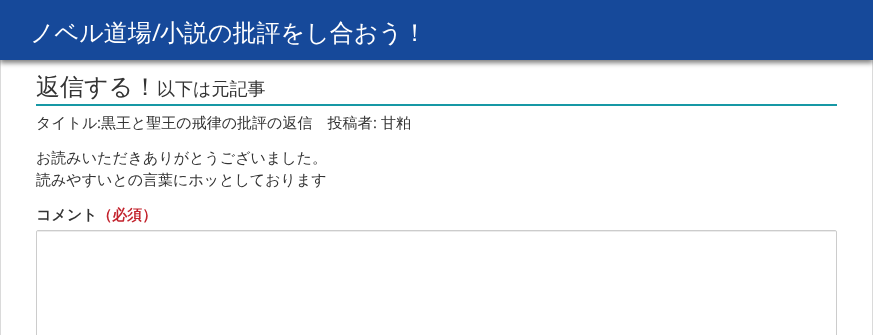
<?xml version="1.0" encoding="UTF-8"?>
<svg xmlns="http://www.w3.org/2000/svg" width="873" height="335">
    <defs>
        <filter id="blur1" x="-50%" y="-200%" width="200%" height="500%"><feGaussianBlur stdDeviation="2.5"/></filter>
    </defs>
    <rect width="100%" height="100%" fill="#FFFFFF"/>
    <rect x="872" y="60" width="1" height="275" fill="#DADADA"/>
    <rect x="0" y="60" width="1" height="275" fill="#DADADA"/>
    <rect x="0" y="3" width="873" height="60" fill="#000000" fill-opacity="0.5" filter="url(#blur1)"/>
    <rect x="0" y="0" width="873" height="60" fill="#16499A"/>
    <text x="30" y="41" font-family="WenQuanYi Zen Hei" font-size="24" font-weight="500" fill="#FFFFFF">ノベル道場</text>
    <text x="152" y="41" font-family="Open Sans" font-size="24" fill="#FFFFFF">/</text>
    <text x="160" y="41" font-family="WenQuanYi Zen Hei" font-size="24" font-weight="500" fill="#FFFFFF">小説の批評をし合おう！</text>
    <rect x="36" y="104" width="801" height="2" fill="#1798A5"/>
    <text x="36" y="95" font-family="WenQuanYi Zen Hei" font-size="24" font-weight="500" fill="#333333">返信する！</text>
    <text x="157" y="95" font-family="WenQuanYi Zen Hei" font-size="18" font-weight="500" fill="#333333">以下は元記事</text>
    <text x="36" y="128" font-family="WenQuanYi Zen Hei" font-size="15" font-weight="500" fill="#333333">タイトル</text>
    <text x="97" y="128" font-family="Open Sans" font-size="15" fill="#333333">:</text>
    <text x="101" y="128" font-family="WenQuanYi Zen Hei" font-size="15" font-weight="500" fill="#333333">黒王と聖王の戒律の批評の返信　投稿者</text>
    <text x="373" y="128" font-family="Open Sans" font-size="15" fill="#333333">:</text>
    <text x="381" y="128" font-family="WenQuanYi Zen Hei" font-size="15" font-weight="500" fill="#333333">甘粕</text>
    <text font-family="WenQuanYi Zen Hei" font-size="15" font-weight="500" fill="#333333">
        <tspan x="36" y="163">お読みいただきありがとうございました。</tspan>
        <tspan x="36" y="185">読みやすいとの言葉にホッとしております</tspan>
    </text>
    <text x="36" y="220" font-family="WenQuanYi Zen Hei" font-size="15" font-weight="700" fill="#333333">コメント</text>
    <text x="97" y="220" font-family="WenQuanYi Zen Hei" font-size="15" font-weight="700" fill="#C3232D">（必須）</text>
    <path d="M 38 232 H 835 C 836 232 836 232 836 233 V 232 L 835 231 H 38 L 37 233 C 37 232 37 232 38 232 Z" fill="#ECECEC"/>
    <rect x="36.5" y="230.5" width="800" height="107" rx="1.5" fill="none" stroke="#CCCCCC"/>
</svg>
